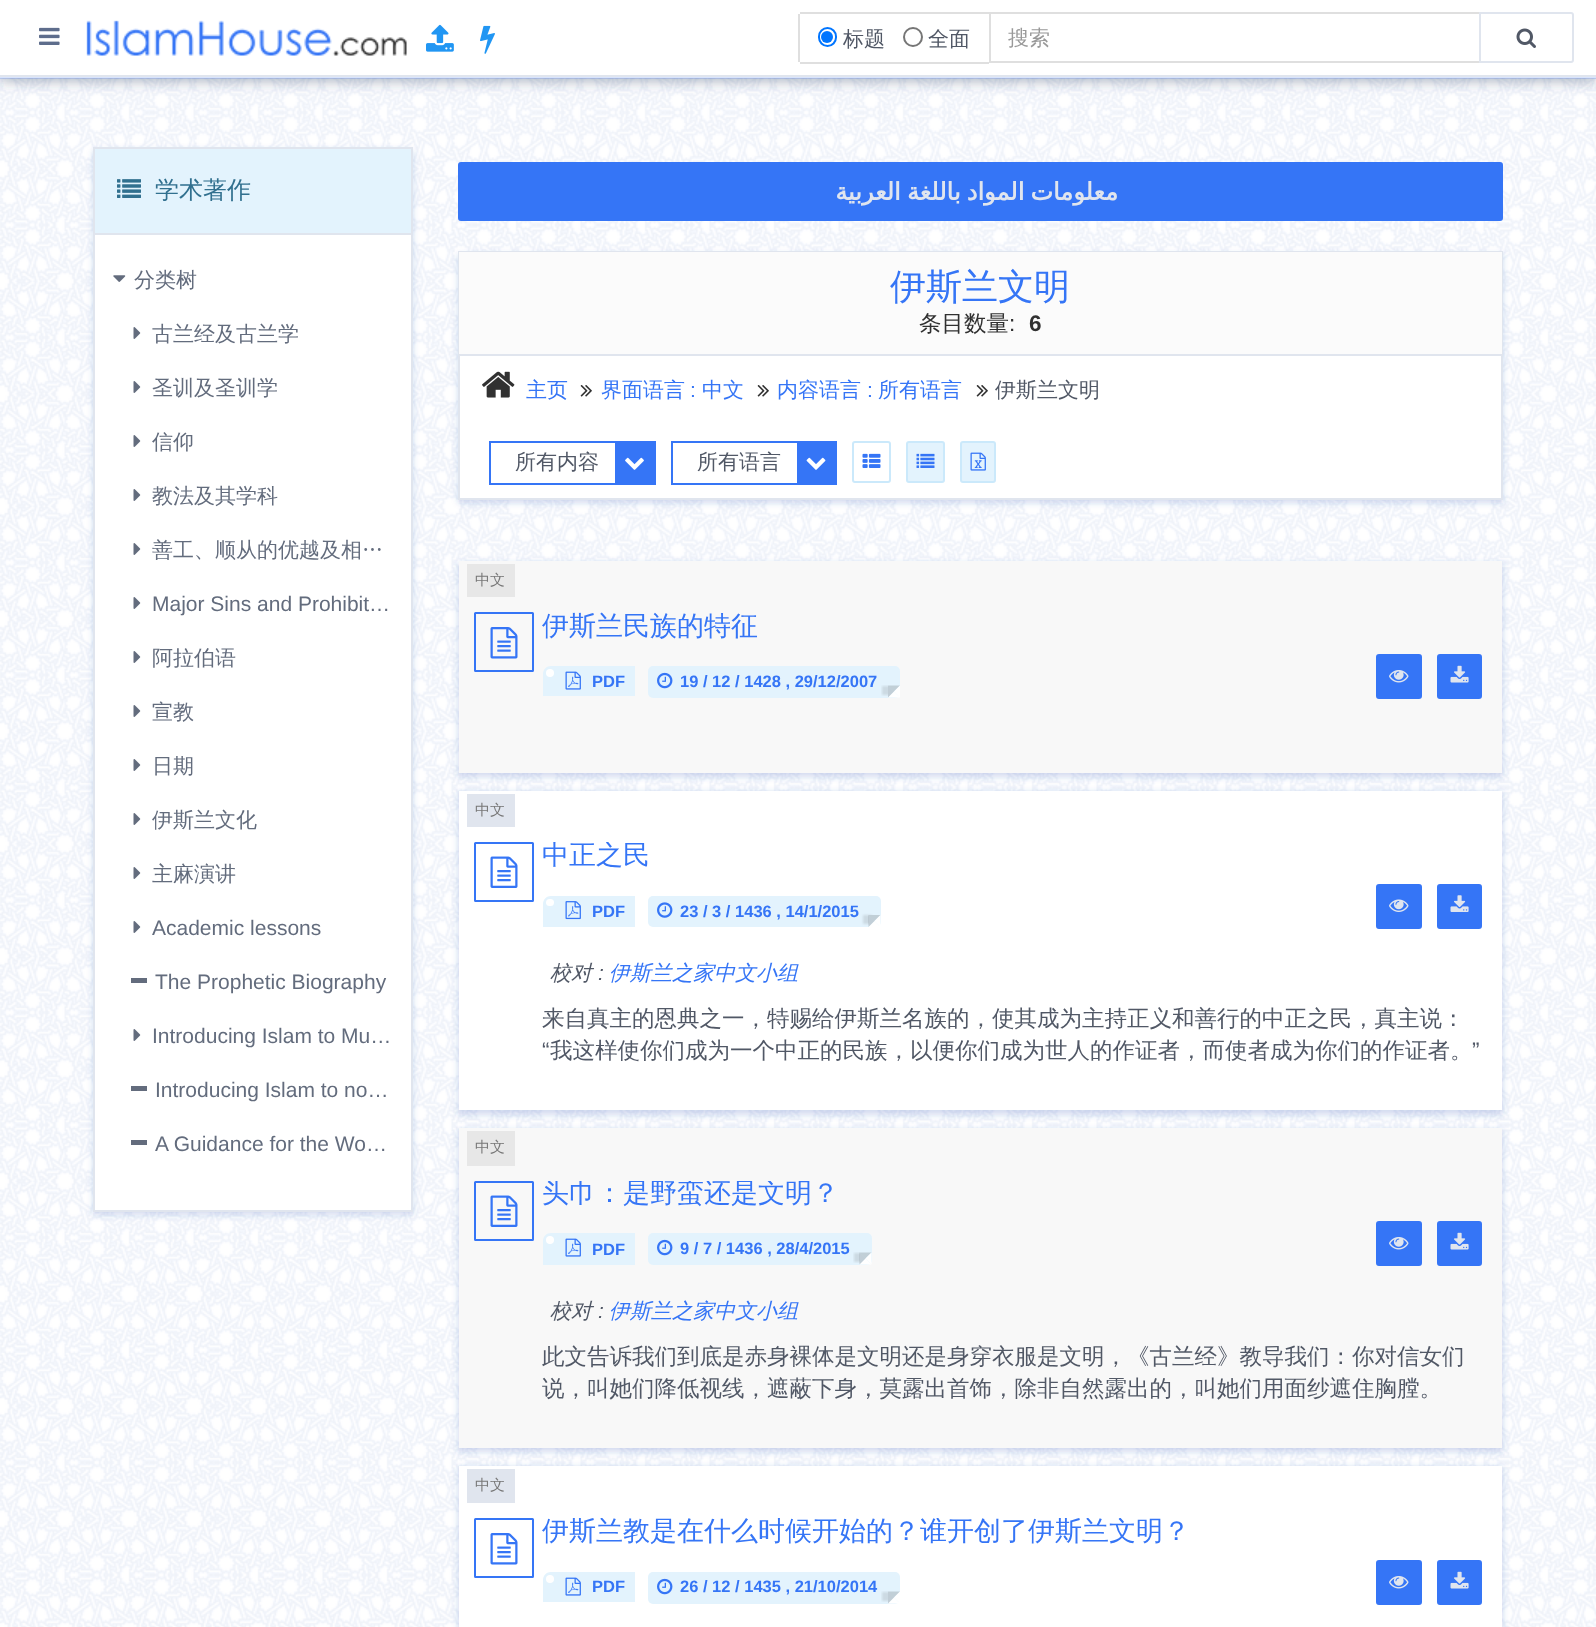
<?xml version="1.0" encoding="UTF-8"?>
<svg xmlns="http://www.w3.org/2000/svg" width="1596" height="1627">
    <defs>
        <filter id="blur1" x="-50%" y="-200%" width="200%" height="500%"><feGaussianBlur stdDeviation="6"/></filter>
        <filter id="blur2" x="-50%" y="-200%" width="200%" height="500%"><feGaussianBlur stdDeviation="3"/></filter>
        <clipPath id="clip1"><rect x="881" y="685" width="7" height="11"/></clipPath>
        <filter id="blur3" x="-50%" y="-200%" width="200%" height="500%"><feGaussianBlur stdDeviation="1"/></filter>
        <clipPath id="clip2"><rect x="534" y="842" width="953" height="253"/></clipPath>
        <clipPath id="clip3"><path d="M 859 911 H 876 V 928 H 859 Z M 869 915 H 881 V 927 H 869 Z" clip-rule="evenodd"/></clipPath>
        <clipPath id="clip4"><rect x="534" y="1181" width="953" height="252"/></clipPath>
        <clipPath id="clip5"><rect x="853" y="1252" width="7" height="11"/></clipPath>
        <clipPath id="clip6"><rect x="534" y="1518" width="953" height="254"/></clipPath>
        <clipPath id="clip7"><rect x="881" y="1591" width="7" height="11"/></clipPath>
    </defs>
    <rect width="100%" height="100%" fill="#FFFFFF"/>
    <image x="0" y="78" width="1596" height="1549" href="img_06.png"/>
    <rect x="0" y="5" width="1596" height="78" fill="#2D3E5F" fill-opacity="0.32" filter="url(#blur1)"/>
    <rect x="0" y="0" width="1596" height="78" fill="#FFFFFF"/>
    <rect x="0" y="77" width="1596" height="2" fill="#3575F6" fill-opacity="0.2"/>
    <image x="39" y="27" width="21" height="18" href="img_01.png"/>
    <image x="86" y="20" width="321" height="36" href="img_02.png"/>
    <image x="426" y="24" width="28" height="28" href="img_03.png"/>
    <image x="480" y="25" width="15" height="29" href="img_04.png"/>
    <rect x="800" y="12" width="189" height="2" fill="#DFDFDF"/>
    <rect x="800" y="62" width="189" height="2" fill="#DFDFDF"/>
    <rect x="798" y="14" width="2" height="48" fill="#DFDFDF"/>
    <rect x="819" y="28" width="17" height="18" rx="8.5" fill="none" stroke="#0075FF" stroke-width="2"/>
    <circle cx="827" cy="37" r="6" fill="#0075FF"/>
    <text x="843" y="46" font-family="WenQuanYi Zen Hei" font-size="21" font-weight="500" fill="#515866">标题</text>
    <circle cx="913" cy="37" r="9" fill="none" stroke="#767676" stroke-width="2"/>
    <text x="928" y="46" font-family="WenQuanYi Zen Hei" font-size="21" font-weight="500" fill="#515866">全面</text>
    <rect x="990" y="13" width="490" height="49" fill="none" stroke="#DFDFDF" stroke-width="2"/>
    <text x="1008" y="45" font-family="WenQuanYi Zen Hei" font-size="21" font-weight="500" fill="#999999">搜索</text>
    <path d="M 1480 13 H 1571 C 1572 13 1573 14 1573 15 V 60 C 1573 61 1572 62 1571 62 H 1480 Z" fill="none" stroke="#E0E5EE" stroke-width="2"/>
    <image x="1516" y="28" width="20" height="20" href="img_05.png"/>
    <rect x="0" y="75" width="1596" height="2" fill="#E0E5EE"/>
    <rect x="93" y="150" width="320" height="1065" fill="#1D4FB3" fill-opacity="0.2" filter="url(#blur2)"/>
    <rect x="95" y="235" width="316" height="975" fill="#FFFFFF"/>
    <rect x="94" y="148" width="318" height="1063" fill="none" stroke="#E0E5EE" stroke-width="2"/>
    <rect x="95" y="149" width="316" height="84" fill="#E3F3FD"/>
    <rect x="95" y="233" width="316" height="2" fill="#E0E5EE"/>
    <image x="117" y="179" width="24" height="19" href="img_07.png"/>
    <text x="155" y="198" font-family="WenQuanYi Zen Hei" font-size="24" font-weight="500" fill="#31708F">学术著作</text>
    <image x="113" y="275" width="13" height="7" href="img_08.png"/>
    <text x="134" y="287" font-family="WenQuanYi Zen Hei" font-size="21" font-weight="500" fill="#636C7D">分类树</text>
    <image x="133" y="327" width="8" height="12" href="img_09.png"/>
    <text x="152" y="341" font-family="WenQuanYi Zen Hei" font-size="21" font-weight="500" fill="#636C7D">古兰经及古兰学</text>
    <image x="133" y="381" width="8" height="12" href="img_09.png"/>
    <text x="152" y="395" font-family="WenQuanYi Zen Hei" font-size="21" font-weight="500" fill="#636C7D">圣训及圣训学</text>
    <image x="133" y="435" width="8" height="12" href="img_09.png"/>
    <text x="152" y="449" font-family="WenQuanYi Zen Hei" font-size="21" font-weight="500" fill="#636C7D">信仰</text>
    <image x="133" y="489" width="8" height="12" href="img_09.png"/>
    <text x="152" y="503" font-family="WenQuanYi Zen Hei" font-size="21" font-weight="500" fill="#636C7D">教法及其学科</text>
    <image x="133" y="543" width="8" height="12" href="img_09.png"/>
    <text x="152" y="557" font-family="WenQuanYi Zen Hei" font-size="21" font-weight="500" fill="#636C7D">善工、顺从的优越及相…</text>
    <image x="133" y="597" width="8" height="12" href="img_09.png"/>
    <text x="152" y="611" font-family="Liberation Sans" font-size="21" fill="#636C7D">Major Sins and Prohibit…</text>
    <image x="133" y="651" width="8" height="12" href="img_09.png"/>
    <text x="152" y="665" font-family="WenQuanYi Zen Hei" font-size="21" font-weight="500" fill="#636C7D">阿拉伯语</text>
    <image x="133" y="705" width="8" height="12" href="img_09.png"/>
    <text x="152" y="719" font-family="WenQuanYi Zen Hei" font-size="21" font-weight="500" fill="#636C7D">宣教</text>
    <image x="133" y="759" width="8" height="12" href="img_09.png"/>
    <text x="152" y="773" font-family="WenQuanYi Zen Hei" font-size="21" font-weight="500" fill="#636C7D">日期</text>
    <image x="133" y="813" width="8" height="12" href="img_09.png"/>
    <text x="152" y="827" font-family="WenQuanYi Zen Hei" font-size="21" font-weight="500" fill="#636C7D">伊斯兰文化</text>
    <image x="133" y="867" width="8" height="12" href="img_09.png"/>
    <text x="152" y="881" font-family="WenQuanYi Zen Hei" font-size="21" font-weight="500" fill="#636C7D">主麻演讲</text>
    <image x="133" y="921" width="8" height="12" href="img_09.png"/>
    <text x="152" y="935" font-family="Liberation Sans" font-size="21" fill="#636C7D">Academic lessons</text>
    <rect x="131" y="978" width="16" height="5" fill="#636C7D"/>
    <text x="155" y="989" font-family="Liberation Sans" font-size="21" fill="#636C7D">The Prophetic Biography</text>
    <image x="133" y="1029" width="8" height="12" href="img_09.png"/>
    <text x="152" y="1043" font-family="Liberation Sans" font-size="21" fill="#636C7D">Introducing Islam to Mu…</text>
    <rect x="131" y="1086" width="16" height="5" fill="#636C7D"/>
    <text x="155" y="1097" font-family="Liberation Sans" font-size="21" fill="#636C7D">Introducing Islam to no…</text>
    <rect x="131" y="1140" width="16" height="5" fill="#636C7D"/>
    <text x="155" y="1151" font-family="Liberation Sans" font-size="21" fill="#636C7D">A Guidance for the Wo…</text>
    <rect x="460" y="164" width="1041" height="55" fill="#3575F6"/>
    <rect x="459" y="163" width="1043" height="57" rx="2" fill="none" stroke="#3575F6" stroke-width="2"/>
    <text x="1118" y="200" word-spacing="-1.5" font-family="DejaVu Sans" font-size="24" font-weight="700" direction="rtl" fill="#E0E5EE">معلومات المواد باللغة العربية</text>
    <rect x="458" y="254" width="1045" height="249" fill="#1D4FB3" fill-opacity="0.2" filter="url(#blur2)"/>
    <rect x="460" y="356" width="1041" height="142" fill="#FFFFFF"/>
    <rect x="459" y="252" width="1043" height="247" fill="none" stroke="#E0E5EE" stroke-width="2"/>
    <rect x="459" y="252" width="1043" height="102" fill="#FBFBFB"/>
    <text x="890" y="299" font-family="WenQuanYi Zen Hei" font-size="36" font-weight="500" fill="#3575F6">伊斯兰文明</text>
    <text x="919" y="331" font-family="WenQuanYi Zen Hei" font-size="22.5" font-weight="500" fill="#313131">条目数量</text>
    <text x="1009" y="331" font-family="Liberation Sans" font-size="22.5" fill="#313131">:</text>
    <text x="1029" y="331" font-family="Liberation Sans" font-size="22.5" font-weight="700" fill="#313131">6</text>
    <rect x="459" y="354" width="1043" height="2" fill="#E0E5EE"/>
    <image x="482" y="371" width="33" height="27" href="img_10.png"/>
    <text x="526" y="397" font-family="WenQuanYi Zen Hei" font-size="21" font-weight="500" fill="#3575F6">主页</text>
    <image x="580" y="385" width="12" height="12" href="img_11.png"/>
    <text x="601" y="397" font-family="WenQuanYi Zen Hei" font-size="21" font-weight="500" fill="#3575F6">界面语言</text>
    <text x="690" y="397" font-family="Liberation Sans" font-size="21" fill="#3575F6">:</text>
    <text x="702" y="397" font-family="WenQuanYi Zen Hei" font-size="21" font-weight="500" fill="#3575F6">中文</text>
    <image x="757" y="385" width="12" height="12" href="img_11.png"/>
    <text x="777" y="397" font-family="WenQuanYi Zen Hei" font-size="21" font-weight="500" fill="#3575F6">内容语言</text>
    <text x="867" y="397" font-family="Liberation Sans" font-size="21" fill="#3575F6">:</text>
    <text x="878" y="397" font-family="WenQuanYi Zen Hei" font-size="21" font-weight="500" fill="#3575F6">所有语言</text>
    <image x="976" y="385" width="12" height="12" href="img_11.png"/>
    <text x="995" y="397" font-family="WenQuanYi Zen Hei" font-size="21" font-weight="500" fill="#515866">伊斯兰文明</text>
    <rect x="490" y="442" width="165" height="42" fill="none" stroke="#3575F6" stroke-width="2"/>
    <text x="515" y="469" font-family="WenQuanYi Zen Hei" font-size="21" font-weight="500" fill="#515866">所有内容</text>
    <rect x="615" y="443" width="39" height="40" fill="#3575F6"/>
    <image x="625" y="457" width="19" height="13" href="img_12.png"/>
    <rect x="672" y="442" width="164" height="42" fill="none" stroke="#3575F6" stroke-width="2"/>
    <text x="697" y="469" font-family="WenQuanYi Zen Hei" font-size="21" font-weight="500" fill="#515866">所有语言</text>
    <rect x="797" y="443" width="38" height="40" fill="#3575F6"/>
    <image x="806" y="457" width="20" height="13" href="img_13.png"/>
    <rect x="853" y="442" width="37" height="40" rx="2" fill="none" stroke="#CBE9FB" stroke-width="2"/>
    <image x="862" y="453" width="19" height="15" href="img_14.png"/>
    <rect x="907" y="442" width="37" height="40" rx="2" fill="#E3F3FD" stroke="#CBE9FB" stroke-width="2"/>
    <image x="916" y="453" width="19" height="15" href="img_15.png"/>
    <rect x="961" y="442" width="34" height="40" rx="2" fill="#E3F3FD" stroke="#CBE9FB" stroke-width="2"/>
    <image x="970" y="452" width="16" height="19" href="img_16.png"/>
    <rect x="458" y="563" width="1045" height="214" fill="#1D4FB3" fill-opacity="0.2" filter="url(#blur2)"/>
    <rect x="459" y="561" width="1043" height="212" fill="#F8F8F8"/>
    <rect x="467" y="564" width="48" height="33" fill="#E7E7E7"/>
    <text x="475" y="585" font-family="WenQuanYi Zen Hei" font-size="15" font-weight="500" fill="#777777">中文</text>
    <rect x="475" y="613" width="58" height="58" rx="0.5" fill="none" stroke="#3575F6" stroke-width="2"/>
    <image x="490" y="627" width="28" height="32" href="img_17.png"/>
    <text x="542" y="635" font-family="WenQuanYi Zen Hei" font-size="27" font-weight="500" fill="#3575F6">伊斯兰民族的特征</text>
    <path d="M 551 666 H 635 V 696 H 543 V 674 C 543 669.5 546.5 666 551 666 Z" fill="#E3F3FD"/>
    <circle cx="550" cy="673" r="4" fill="#FFFFFF"/>
    <image x="565" y="671" width="16" height="19" href="img_18.png"/>
    <text x="592" y="687" font-family="Liberation Sans" font-size="16.5" font-weight="700" fill="#3575F6">PDF</text>
    <rect x="648" y="666" width="252" height="32" rx="5" fill="#E3F3FD"/>
    <image x="657" y="672" width="16" height="17" href="img_19.png"/>
    <text x="680" y="687" font-family="Liberation Sans" font-size="16.5" font-weight="700" fill="#3575F6">19 / 12 / 1428 , 29/12/2007</text>
    <g clip-path="url(#clip1)">
        <rect x="882" y="686" width="9" height="9" fill="#000000" fill-opacity="0.1" filter="url(#blur3)"/>
    </g>
    <path d="M 888 685.5 H 900 L 894 691.5 Z" fill="#C1CFD7"/>
    <path d="M 900 685.5 V 697.5 L 894 691.5 Z" fill="#FFFFFF"/>
    <path d="M 900 697.5 H 888 L 894 691.5 Z" fill="#FFFFFF"/>
    <path d="M 888 697.5 V 685.5 L 894 691.5 Z" fill="#000000" fill-opacity="0.15"/>
    <rect x="1378" y="656" width="42" height="41" fill="#3575F6"/>
    <rect x="1377" y="655" width="44" height="43" rx="2" fill="none" stroke="#3575F6" stroke-width="2"/>
    <image x="1389" y="670" width="20" height="13" href="img_20.png"/>
    <rect x="1438" y="655" width="43" height="43" rx="2" fill="#3575F6" stroke="#3575F6" stroke-width="2"/>
    <image x="1450" y="665" width="19" height="18" href="img_21.png"/>
    <rect x="458" y="792" width="1045" height="323" fill="#1D4FB3" fill-opacity="0.2" filter="url(#blur2)"/>
    <rect x="459" y="791" width="1043" height="319" fill="#FFFFFF"/>
    <rect x="467" y="794" width="48" height="33" fill="#E0E5EE"/>
    <text x="475" y="815" font-family="WenQuanYi Zen Hei" font-size="15" font-weight="500" fill="#777777">中文</text>
    <rect x="475" y="843" width="58" height="58" rx="0.5" fill="none" stroke="#3575F6" stroke-width="2"/>
    <image x="490" y="856" width="28" height="32" href="img_22.png"/>
    <g clip-path="url(#clip2)">
        <text x="542" y="864" font-family="WenQuanYi Zen Hei" font-size="27" font-weight="500" fill="#3575F6">中正之民</text>
    </g>
    <path d="M 551 896 H 635 V 927 H 543 V 904 C 543 899.5 546.5 896 551 896 Z" fill="#E3F3FD"/>
    <rect x="546" y="899" width="8" height="7" rx="3.5" fill="#FFFFFF"/>
    <image x="565" y="901" width="16" height="19" href="img_23.png"/>
    <text x="592" y="917" font-family="Liberation Sans" font-size="16.5" font-weight="700" fill="#3575F6">PDF</text>
    <rect x="648" y="896" width="233" height="31" rx="5" fill="#E3F3FD"/>
    <image x="657" y="902" width="16" height="16" href="img_24.png"/>
    <text x="680" y="917" font-family="Liberation Sans" font-size="16.5" font-weight="700" fill="#3575F6">23 / 3 / 1436 , 14/1/2015</text>
    <g clip-path="url(#clip3)">
        <rect x="863" y="915" width="9" height="9" fill="#000000" fill-opacity="0.1" filter="url(#blur3)"/>
    </g>
    <path d="M 868.5 915 H 880.5 L 874.5 921 Z" fill="#C1CFD7"/>
    <path d="M 880.5 915 V 927 L 874.5 921 Z" fill="#FFFFFF"/>
    <path d="M 880.5 927 H 868.5 L 874.5 921 Z" fill="#FFFFFF"/>
    <path d="M 868.5 927 V 915 L 874.5 921 Z" fill="#000000" fill-opacity="0.15"/>
    <rect x="1378" y="886" width="42" height="41" fill="#3575F6"/>
    <rect x="1377" y="885" width="44" height="43" rx="2" fill="none" stroke="#3575F6" stroke-width="2"/>
    <image x="1389" y="899" width="20" height="13" href="img_25.png"/>
    <rect x="1438" y="885" width="43" height="43" rx="2" fill="#3575F6" stroke="#3575F6" stroke-width="2"/>
    <image x="1450" y="895" width="19" height="17" href="img_26.png"/>
    <text x="550" y="980" font-family="WenQuanYi Zen Hei" font-size="21" font-weight="500" font-style="italic" fill="#515866">校对</text>
    <text x="598" y="980" font-family="Liberation Sans" font-size="21" font-style="italic" fill="#515866">:</text>
    <text x="609" y="980" font-family="WenQuanYi Zen Hei" font-size="21" font-weight="500" font-style="italic" fill="#3575F6">伊斯兰之家中文小组</text>
    <text x="542" y="1026" font-family="WenQuanYi Zen Hei" font-size="22.5" font-weight="500" fill="#515866">来自真主的恩典之一，特赐给伊斯兰名族的，使其成为主持正义和善行的中正之民，真主说：</text>
    <text x="542" y="1058" font-family="Liberation Sans" font-size="22.5" fill="#515866">“</text>
    <text x="550" y="1058" font-family="WenQuanYi Zen Hei" font-size="22.5" font-weight="500" fill="#515866">我这样使你们成为一个中正的民族，以便你们成为世人的作证者，而使者成为你们的作证者。</text>
    <text x="1472" y="1058" font-family="Liberation Sans" font-size="22.5" fill="#515866">”</text>
    <rect x="458" y="1130" width="1045" height="322" fill="#1D4FB3" fill-opacity="0.2" filter="url(#blur2)"/>
    <rect x="459" y="1128" width="1043" height="320" fill="#F8F8F8"/>
    <rect x="467" y="1131" width="48" height="35" fill="#E7E7E7"/>
    <text x="475" y="1152" font-family="WenQuanYi Zen Hei" font-size="15" font-weight="500" fill="#777777">中文</text>
    <rect x="475" y="1182" width="58" height="58" rx="0.5" fill="none" stroke="#3575F6" stroke-width="2"/>
    <image x="490" y="1195" width="28" height="32" href="img_27.png"/>
    <g clip-path="url(#clip4)">
        <text x="542" y="1202" font-family="WenQuanYi Zen Hei" font-size="27" font-weight="500" fill="#3575F6">头巾：是野蛮还是文明？</text>
    </g>
    <path d="M 551 1233 H 635 V 1265 H 543 V 1241 C 543 1236.5 546.5 1233 551 1233 Z" fill="#E3F3FD"/>
    <circle cx="550" cy="1240" r="4" fill="#FFFFFF"/>
    <image x="565" y="1238" width="16" height="19" href="img_18.png"/>
    <text x="592" y="1255" font-family="Liberation Sans" font-size="16.5" font-weight="700" fill="#3575F6">PDF</text>
    <rect x="648" y="1233" width="224" height="32" rx="5" fill="#E3F3FD"/>
    <image x="657" y="1239" width="16" height="17" href="img_19.png"/>
    <text x="680" y="1254" font-family="Liberation Sans" font-size="16.5" font-weight="700" fill="#3575F6">9 / 7 / 1436 , 28/4/2015</text>
    <g clip-path="url(#clip5)">
        <rect x="854" y="1253" width="9" height="9" fill="#000000" fill-opacity="0.1" filter="url(#blur3)"/>
    </g>
    <path d="M 859.5 1252.5 H 871.5 L 865.5 1258.5 Z" fill="#C1CFD7"/>
    <path d="M 871.5 1252.5 V 1264.5 L 865.5 1258.5 Z" fill="#FFFFFF"/>
    <path d="M 871.5 1264.5 H 859.5 L 865.5 1258.5 Z" fill="#FFFFFF"/>
    <path d="M 859.5 1264.5 V 1252.5 L 865.5 1258.5 Z" fill="#000000" fill-opacity="0.15"/>
    <rect x="1378" y="1223" width="42" height="41" fill="#3575F6"/>
    <rect x="1377" y="1222" width="44" height="43" rx="2" fill="none" stroke="#3575F6" stroke-width="2"/>
    <image x="1389" y="1237" width="20" height="13" href="img_20.png"/>
    <rect x="1438" y="1222" width="43" height="43" rx="2" fill="#3575F6" stroke="#3575F6" stroke-width="2"/>
    <image x="1450" y="1232" width="19" height="18" href="img_21.png"/>
    <text x="550" y="1318" font-family="WenQuanYi Zen Hei" font-size="21" font-weight="500" font-style="italic" fill="#515866">校对</text>
    <text x="598" y="1318" font-family="Liberation Sans" font-size="21" font-style="italic" fill="#515866">:</text>
    <text x="609" y="1318" font-family="WenQuanYi Zen Hei" font-size="21" font-weight="500" font-style="italic" fill="#3575F6">伊斯兰之家中文小组</text>
    <text font-family="WenQuanYi Zen Hei" font-size="22.5" font-weight="500" fill="#515866">
        <tspan x="542" y="1364">此文告诉我们到底是赤身裸体是文明还是身穿衣服是文明，《古兰经》教导我们：你对信女们</tspan>
        <tspan x="542" y="1396">说，叫她们降低视线，遮蔽下身，莫露出首饰，除非自然露出的，叫她们用面纱遮住胸膛。</tspan>
    </text>
    <rect x="458" y="1467" width="1045" height="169" fill="#1D4FB3" fill-opacity="0.2" filter="url(#blur2)"/>
    <rect x="459" y="1466" width="1043" height="161" fill="#FFFFFF"/>
    <rect x="467" y="1469" width="48" height="34" fill="#E0E5EE"/>
    <text x="475" y="1490" font-family="WenQuanYi Zen Hei" font-size="15" font-weight="500" fill="#777777">中文</text>
    <rect x="475" y="1519" width="58" height="58" rx="0.5" fill="none" stroke="#3575F6" stroke-width="2"/>
    <image x="490" y="1533" width="28" height="32" href="img_28.png"/>
    <g clip-path="url(#clip6)">
        <text x="542" y="1540" font-family="WenQuanYi Zen Hei" font-size="27" font-weight="500" fill="#3575F6">伊斯兰教是在什么时候开始的？谁开创了伊斯兰文明？</text>
    </g>
    <path d="M 551 1572 H 635 V 1602 H 543 V 1580 C 543 1575.5 546.5 1572 551 1572 Z" fill="#E3F3FD"/>
    <circle cx="550" cy="1579" r="4" fill="#FFFFFF"/>
    <image x="565" y="1577" width="16" height="19" href="img_18.png"/>
    <text x="592" y="1592" font-family="Liberation Sans" font-size="16.5" font-weight="700" fill="#3575F6">PDF</text>
    <rect x="648" y="1572" width="252" height="32" rx="5" fill="#E3F3FD"/>
    <image x="657" y="1578" width="16" height="17" href="img_19.png"/>
    <text x="680" y="1592" font-family="Liberation Sans" font-size="16.5" font-weight="700" fill="#3575F6">26 / 12 / 1435 , 21/10/2014</text>
    <g clip-path="url(#clip7)">
        <rect x="882" y="1592" width="9" height="9" fill="#000000" fill-opacity="0.1" filter="url(#blur3)"/>
    </g>
    <path d="M 888 1591.5 H 900 L 894 1597.5 Z" fill="#C1CFD7"/>
    <path d="M 900 1591.5 V 1603.5 L 894 1597.5 Z" fill="#FFFFFF"/>
    <path d="M 900 1603.5 H 888 L 894 1597.5 Z" fill="#FFFFFF"/>
    <path d="M 888 1603.5 V 1591.5 L 894 1597.5 Z" fill="#000000" fill-opacity="0.15"/>
    <rect x="1378" y="1562" width="42" height="41" fill="#3575F6"/>
    <rect x="1377" y="1561" width="44" height="43" rx="2" fill="none" stroke="#3575F6" stroke-width="2"/>
    <image x="1389" y="1576" width="20" height="13" href="img_20.png"/>
    <rect x="1438" y="1561" width="43" height="43" rx="2" fill="#3575F6" stroke="#3575F6" stroke-width="2"/>
    <image x="1450" y="1571" width="19" height="18" href="img_21.png"/>
</svg>
